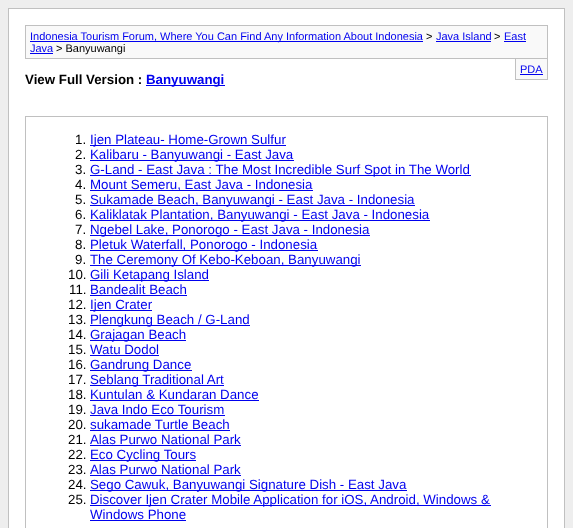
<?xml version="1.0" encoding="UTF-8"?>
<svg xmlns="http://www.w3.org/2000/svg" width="573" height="528">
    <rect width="100%" height="100%" fill="#EEEEEE"/>
    <rect x="8.5" y="8.5" width="556" height="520" fill="#FFFFFF" stroke="#C0C0C0"/>
    <rect x="25.5" y="25.5" width="522" height="33" fill="#F9F9F9" stroke="#C0C0C0"/>
    <rect x="30" y="41" width="393" height="1" fill="#0000EE"/>
    <text x="30" y="40" font-family="Liberation Sans" font-size="11" fill="#0000EE">Indonesia Tourism Forum, Where You Can Find Any Information About Indonesia</text>
    <text x="426" y="40" font-family="Liberation Sans" font-size="11" fill="#000000">&gt;</text>
    <text x="436" y="40" font-family="Liberation Sans" font-size="11" fill="#0000EE">Java Island</text>
    <rect x="436" y="41" width="55" height="1" fill="#0000EE"/>
    <text x="494" y="40" font-family="Liberation Sans" font-size="11" fill="#000000">&gt;</text>
    <text x="504" y="40" font-family="Liberation Sans" font-size="11" fill="#0000EE">East</text>
    <rect x="504" y="41" width="22" height="1" fill="#0000EE"/>
    <text x="30" y="52" font-family="Liberation Sans" font-size="11" fill="#0000EE">Java</text>
    <rect x="30" y="53" width="23" height="1" fill="#0000EE"/>
    <text x="56" y="52" font-family="Liberation Sans" font-size="11" fill="#000000">&gt; Banyuwangi</text>
    <rect x="516" y="59" width="31" height="20" fill="#F9F9F9"/>
    <rect x="547" y="59" width="1" height="21" fill="#C0C0C0"/>
    <rect x="515" y="79" width="33" height="1" fill="#C0C0C0"/>
    <rect x="515" y="59" width="1" height="21" fill="#C0C0C0"/>
    <text x="520" y="73" font-family="Liberation Sans" font-size="11" fill="#0000EE">PDA</text>
    <rect x="520" y="74" width="23" height="1" fill="#0000EE"/>
    <text x="25" y="84" font-family="Liberation Sans" font-size="13.3" font-weight="700" fill="#000000">View Full Version :</text>
    <rect x="146" y="85" width="79" height="1" fill="#0000EE"/>
    <text x="146" y="84" font-family="Liberation Sans" font-size="13.3" font-weight="700" fill="#0000EE">Banyuwangi</text>
    <rect x="25.5" y="116.5" width="522" height="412" fill="none" stroke="#C0C0C0"/>
    <text x="75" y="144" font-family="Liberation Sans" font-size="13.3" fill="#000000">1.</text>
    <rect x="90" y="145" width="196" height="1" fill="#0000EE"/>
    <text x="90" y="144" font-family="Liberation Sans" font-size="13.3" fill="#0000EE">Ijen Plateau- Home-Grown Sulfur</text>
    <text x="75" y="159" font-family="Liberation Sans" font-size="13.3" fill="#000000">2.</text>
    <rect x="90" y="160" width="204" height="1" fill="#0000EE"/>
    <text x="90" y="159" font-family="Liberation Sans" font-size="13.3" fill="#0000EE">Kalibaru - Banyuwangi - East Java</text>
    <text x="75" y="174" font-family="Liberation Sans" font-size="13.3" fill="#000000">3.</text>
    <rect x="90" y="175" width="381" height="1" fill="#0000EE"/>
    <text x="90" y="174" font-family="Liberation Sans" font-size="13.3" fill="#0000EE">G-Land - East Java : The Most Incredible Surf Spot in The World</text>
    <text x="75" y="189" font-family="Liberation Sans" font-size="13.3" fill="#000000">4.</text>
    <rect x="90" y="190" width="223" height="1" fill="#0000EE"/>
    <text x="90" y="189" font-family="Liberation Sans" font-size="13.3" fill="#0000EE">Mount Semeru, East Java - Indonesia</text>
    <text x="75" y="204" font-family="Liberation Sans" font-size="13.3" fill="#000000">5.</text>
    <rect x="90" y="205" width="325" height="1" fill="#0000EE"/>
    <text x="90" y="204" font-family="Liberation Sans" font-size="13.3" fill="#0000EE">Sukamade Beach, Banyuwangi - East Java - Indonesia</text>
    <text x="75" y="219" font-family="Liberation Sans" font-size="13.3" fill="#000000">6.</text>
    <rect x="90" y="220" width="340" height="1" fill="#0000EE"/>
    <text x="90" y="219" font-family="Liberation Sans" font-size="13.3" fill="#0000EE">Kaliklatak Plantation, Banyuwangi - East Java - Indonesia</text>
    <text x="75" y="234" font-family="Liberation Sans" font-size="13.3" fill="#000000">7.</text>
    <rect x="90" y="235" width="280" height="1" fill="#0000EE"/>
    <text x="90" y="234" font-family="Liberation Sans" font-size="13.3" fill="#0000EE">Ngebel Lake, Ponorogo - East Java - Indonesia</text>
    <text x="75" y="249" font-family="Liberation Sans" font-size="13.3" fill="#000000">8.</text>
    <rect x="90" y="250" width="228" height="1" fill="#0000EE"/>
    <text x="90" y="249" font-family="Liberation Sans" font-size="13.3" fill="#0000EE">Pletuk Waterfall, Ponorogo - Indonesia</text>
    <text x="75" y="264" font-family="Liberation Sans" font-size="13.3" fill="#000000">9.</text>
    <rect x="90" y="265" width="271" height="1" fill="#0000EE"/>
    <text x="90" y="264" font-family="Liberation Sans" font-size="13.3" fill="#0000EE">The Ceremony Of Kebo-Keboan, Banyuwangi</text>
    <text x="68" y="279" font-family="Liberation Sans" font-size="13.3" fill="#000000">10.</text>
    <rect x="90" y="280" width="119" height="1" fill="#0000EE"/>
    <text x="90" y="279" font-family="Liberation Sans" font-size="13.3" fill="#0000EE">Gili Ketapang Island</text>
    <text x="69" y="294" font-family="Liberation Sans" font-size="13.3" fill="#000000">11.</text>
    <text x="90" y="294" font-family="Liberation Sans" font-size="13.3" fill="#0000EE">Bandealit Beach</text>
    <rect x="90" y="295" width="97" height="1" fill="#0000EE"/>
    <text x="68" y="309" font-family="Liberation Sans" font-size="13.3" fill="#000000">12.</text>
    <rect x="90" y="310" width="62" height="1" fill="#0000EE"/>
    <text x="90" y="309" font-family="Liberation Sans" font-size="13.3" fill="#0000EE">Ijen Crater</text>
    <text x="68" y="324" font-family="Liberation Sans" font-size="13.3" fill="#000000">13.</text>
    <rect x="90" y="325" width="160" height="1" fill="#0000EE"/>
    <text x="90" y="324" font-family="Liberation Sans" font-size="13.3" fill="#0000EE">Plengkung Beach / G-Land</text>
    <text x="68" y="339" font-family="Liberation Sans" font-size="13.3" fill="#000000">14.</text>
    <rect x="90" y="340" width="96" height="1" fill="#0000EE"/>
    <text x="90" y="339" font-family="Liberation Sans" font-size="13.3" fill="#0000EE">Grajagan Beach</text>
    <text x="68" y="354" font-family="Liberation Sans" font-size="13.3" fill="#000000">15.</text>
    <text x="90" y="354" font-family="Liberation Sans" font-size="13.3" fill="#0000EE">Watu Dodol</text>
    <rect x="90" y="355" width="69" height="1" fill="#0000EE"/>
    <text x="68" y="369" font-family="Liberation Sans" font-size="13.3" fill="#000000">16.</text>
    <rect x="90" y="370" width="102" height="1" fill="#0000EE"/>
    <text x="90" y="369" font-family="Liberation Sans" font-size="13.3" fill="#0000EE">Gandrung Dance</text>
    <text x="68" y="384" font-family="Liberation Sans" font-size="13.3" fill="#000000">17.</text>
    <rect x="90" y="385" width="134" height="1" fill="#0000EE"/>
    <text x="90" y="384" font-family="Liberation Sans" font-size="13.3" fill="#0000EE">Seblang Traditional Art</text>
    <text x="68" y="399" font-family="Liberation Sans" font-size="13.3" fill="#000000">18.</text>
    <text x="90" y="399" font-family="Liberation Sans" font-size="13.3" fill="#0000EE">Kuntulan &amp; Kundaran Dance</text>
    <rect x="90" y="400" width="169" height="1" fill="#0000EE"/>
    <text x="68" y="414" font-family="Liberation Sans" font-size="13.3" fill="#000000">19.</text>
    <text x="90" y="414" font-family="Liberation Sans" font-size="13.3" fill="#0000EE">Java Indo Eco Tourism</text>
    <rect x="90" y="415" width="135" height="1" fill="#0000EE"/>
    <text x="68" y="429" font-family="Liberation Sans" font-size="13.3" fill="#000000">20.</text>
    <text x="90" y="429" font-family="Liberation Sans" font-size="13.3" fill="#0000EE">sukamade Turtle Beach</text>
    <rect x="90" y="430" width="140" height="1" fill="#0000EE"/>
    <text x="68" y="444" font-family="Liberation Sans" font-size="13.3" fill="#000000">21.</text>
    <text x="90" y="444" font-family="Liberation Sans" font-size="13.3" fill="#0000EE">Alas Purwo National Park</text>
    <rect x="90" y="445" width="151" height="1" fill="#0000EE"/>
    <text x="68" y="459" font-family="Liberation Sans" font-size="13.3" fill="#000000">22.</text>
    <rect x="90" y="460" width="106" height="1" fill="#0000EE"/>
    <text x="90" y="459" font-family="Liberation Sans" font-size="13.3" fill="#0000EE">Eco Cycling Tours</text>
    <text x="68" y="474" font-family="Liberation Sans" font-size="13.3" fill="#000000">23.</text>
    <text x="90" y="474" font-family="Liberation Sans" font-size="13.3" fill="#0000EE">Alas Purwo National Park</text>
    <rect x="90" y="475" width="151" height="1" fill="#0000EE"/>
    <text x="68" y="489" font-family="Liberation Sans" font-size="13.3" fill="#000000">24.</text>
    <rect x="90" y="490" width="317" height="1" fill="#0000EE"/>
    <text x="90" y="489" font-family="Liberation Sans" font-size="13.3" fill="#0000EE">Sego Cawuk, Banyuwangi Signature Dish - East Java</text>
    <text x="68" y="504" font-family="Liberation Sans" font-size="13.3" fill="#000000">25.</text>
    <rect x="90" y="505" width="401" height="1" fill="#0000EE"/>
    <text font-family="Liberation Sans" font-size="13.3" fill="#0000EE">
        <tspan x="90" y="504">Discover Ijen Crater Mobile Application for iOS, Android, Windows &amp;</tspan>
        <tspan x="90" y="519">Windows Phone</tspan>
    </text>
    <rect x="90" y="520" width="96" height="1" fill="#0000EE"/>
</svg>
